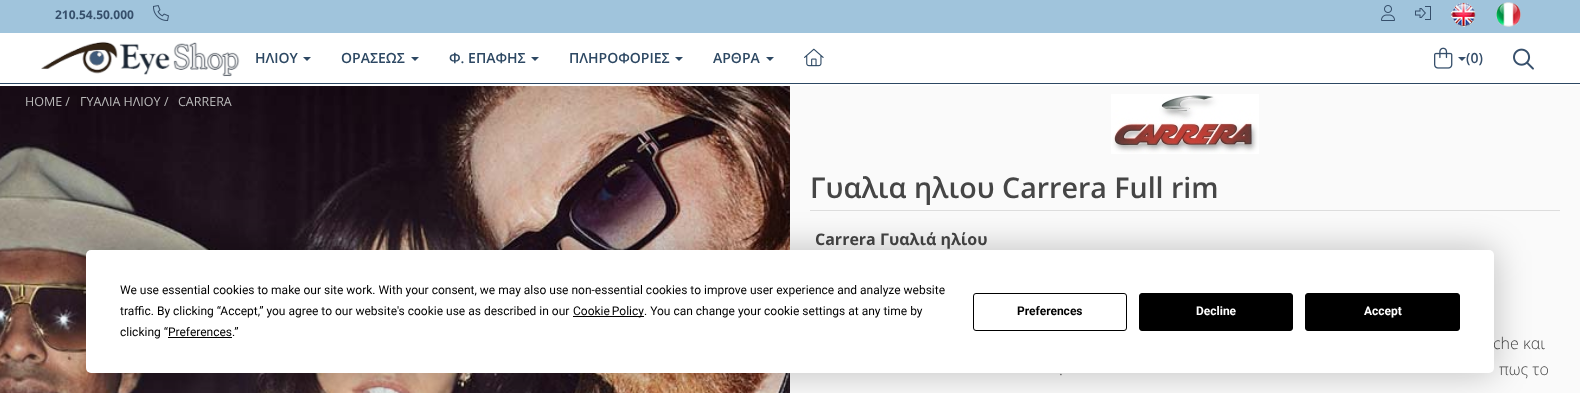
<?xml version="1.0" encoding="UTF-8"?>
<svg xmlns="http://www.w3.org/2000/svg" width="1580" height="393">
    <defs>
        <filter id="blur1" x="-50%" y="-200%" width="200%" height="500%"><feGaussianBlur stdDeviation="17.5"/></filter>
    </defs>
    <rect width="100%" height="100%" fill="#FFFFFF"/>
    <rect x="0" y="83" width="1580" height="1" fill="#2D4863"/>
    <rect x="0" y="0" width="1580" height="33" fill="#A0C4DC"/>
    <text x="55" y="19" font-family="Open Sans" font-size="12" font-weight="700" fill="#364F6B">210.54.50.000</text>
    <image x="153" y="5" width="16" height="16" href="img_01.png"/>
    <image x="1381" y="5" width="14" height="16" href="img_02.png"/>
    <image x="1415" y="6" width="16" height="14" href="img_03.png"/>
    <image x="1451" y="2" width="25" height="25" href="img_04.png"/>
    <image x="1496" y="2" width="25" height="25" href="img_05.png"/>
    <image x="41" y="41" width="199" height="36" href="img_06.png"/>
    <text x="255" y="63" font-family="Open Sans" font-size="14" font-weight="600" fill="#2D4863">ΗΛΙΟΥ</text>
    <path d="M 303 57 H 311 L 307 61 Z" fill="#2D4863"/>
    <text x="341" y="63" font-family="Open Sans" font-size="14" font-weight="600" fill="#2D4863">ΟΡΑΣΕΩΣ</text>
    <path d="M 411 57 H 419 L 415 61 Z" fill="#2D4863"/>
    <text x="449" y="63" font-family="Open Sans" font-size="14" font-weight="600" fill="#2D4863">Φ. ΕΠΑΦΗΣ</text>
    <path d="M 531 57 H 539 L 535 61 Z" fill="#2D4863"/>
    <text x="569" y="63" font-family="Open Sans" font-size="14" font-weight="600" fill="#2D4863">ΠΛΗΡΟΦΟΡΙΕΣ</text>
    <path d="M 675 57 H 683 L 679 61 Z" fill="#2D4863"/>
    <text x="713" y="63" font-family="Open Sans" font-size="14" font-weight="600" fill="#2D4863">ΑΡΘΡΑ</text>
    <path d="M 766 57 H 774 L 770 61 Z" fill="#2D4863"/>
    <image x="804" y="48" width="20" height="19" href="img_07.png"/>
    <image x="1434" y="47" width="19" height="22" href="img_08.png"/>
    <path d="M 1458 57 H 1466 L 1462 61 Z" fill="#364F6B"/>
    <text x="1466" y="63" font-family="Open Sans" font-size="14" font-weight="600" fill="#364F6B">(0)</text>
    <image x="1513" y="48" width="21" height="22" href="img_09.png"/>
    <image x="0" y="86" width="790" height="307" href="img_10.png"/>
    <text x="25" y="106" font-family="Open Sans" font-size="12.5" fill="#BABABA">HOME /</text>
    <text x="80" y="106" font-family="Open Sans" font-size="12.5" fill="#BABABA">ΓΥΑΛΙΑ ΗΛΙΟΥ</text>
    <text x="164" y="106" font-family="Open Sans" font-size="12.5" fill="#BABABA">/</text>
    <text x="178" y="106" font-family="Open Sans" font-size="12.5" fill="#BABABA">CARRERA</text>
    <rect x="790" y="86" width="790" height="307" fill="#FAFAFA"/>
    <image x="1111" y="94" width="148" height="60" href="img_11.png"/>
    <rect x="810" y="210" width="750" height="1" fill="#DDDDDD"/>
    <text x="810" y="198" font-family="Open Sans" font-size="28.6" font-weight="600" fill="#454545">Γυαλια ηλιου Carrera Full rim</text>
    <text x="815" y="245" font-family="Open Sans" font-size="16" font-weight="700" fill="#454545">Carrera Γυαλιά ηλίου</text>
    <text x="1493" y="349" font-family="Open Sans" font-size="16" font-weight="300" fill="#454545">che και</text>
    <text x="1059" y="375" font-family="Open Sans" font-size="16" font-weight="300" fill="#454545">.</text>
    <text x="1499" y="375" font-family="Open Sans" font-size="16" font-weight="300" fill="#454545">πως το</text>
    <rect x="86" y="250" width="1408" height="123" rx="5" fill="#000000" fill-opacity="0.25" filter="url(#blur1)"/>
    <rect x="86" y="250" width="1408" height="123" rx="5" fill="#FFFFFF"/>
    <text font-family="Roboto" font-size="12" fill="#000000">
        <tspan x="120" y="294">We use essential cookies to make our site work. With your consent, we may also use non-essential cookies to improve user experience and analyze website</tspan>
        <tspan x="120" y="315">traffic. By clicking “Accept,” you agree to our website's cookie use as described in our</tspan>
    </text>
    <rect x="573" y="316" width="71" height="1" fill="#000000"/>
    <text x="573" y="315" word-spacing="-1" font-family="Roboto" font-size="12" fill="#000000">Cookie Policy</text>
    <text x="644" y="315" font-family="Roboto" font-size="12" fill="#000000">. You can change your cookie settings at any time by</text>
    <text x="120" y="336" font-family="Roboto" font-size="12" fill="#000000">clicking “Preferences.”</text>
    <rect x="168" y="337" width="64" height="1" fill="#000000"/>
    <rect x="973.5" y="293.5" width="153" height="37" rx="2.5" fill="none" stroke="#000000"/>
    <text x="1017" y="315" font-family="Roboto" font-size="12" font-weight="700" fill="#000000">Preferences</text>
    <rect x="1139.5" y="293.5" width="153" height="37" rx="2.5" fill="#000000" stroke="#000000"/>
    <text x="1196" y="315" font-family="Roboto" font-size="12" font-weight="700" fill="#FFFFFF">Decline</text>
    <rect x="1305.5" y="293.5" width="154" height="37" rx="2.5" fill="#000000" stroke="#000000"/>
    <text x="1364" y="315" font-family="Roboto" font-size="12" font-weight="700" fill="#FFFFFF">Accept</text>
</svg>
